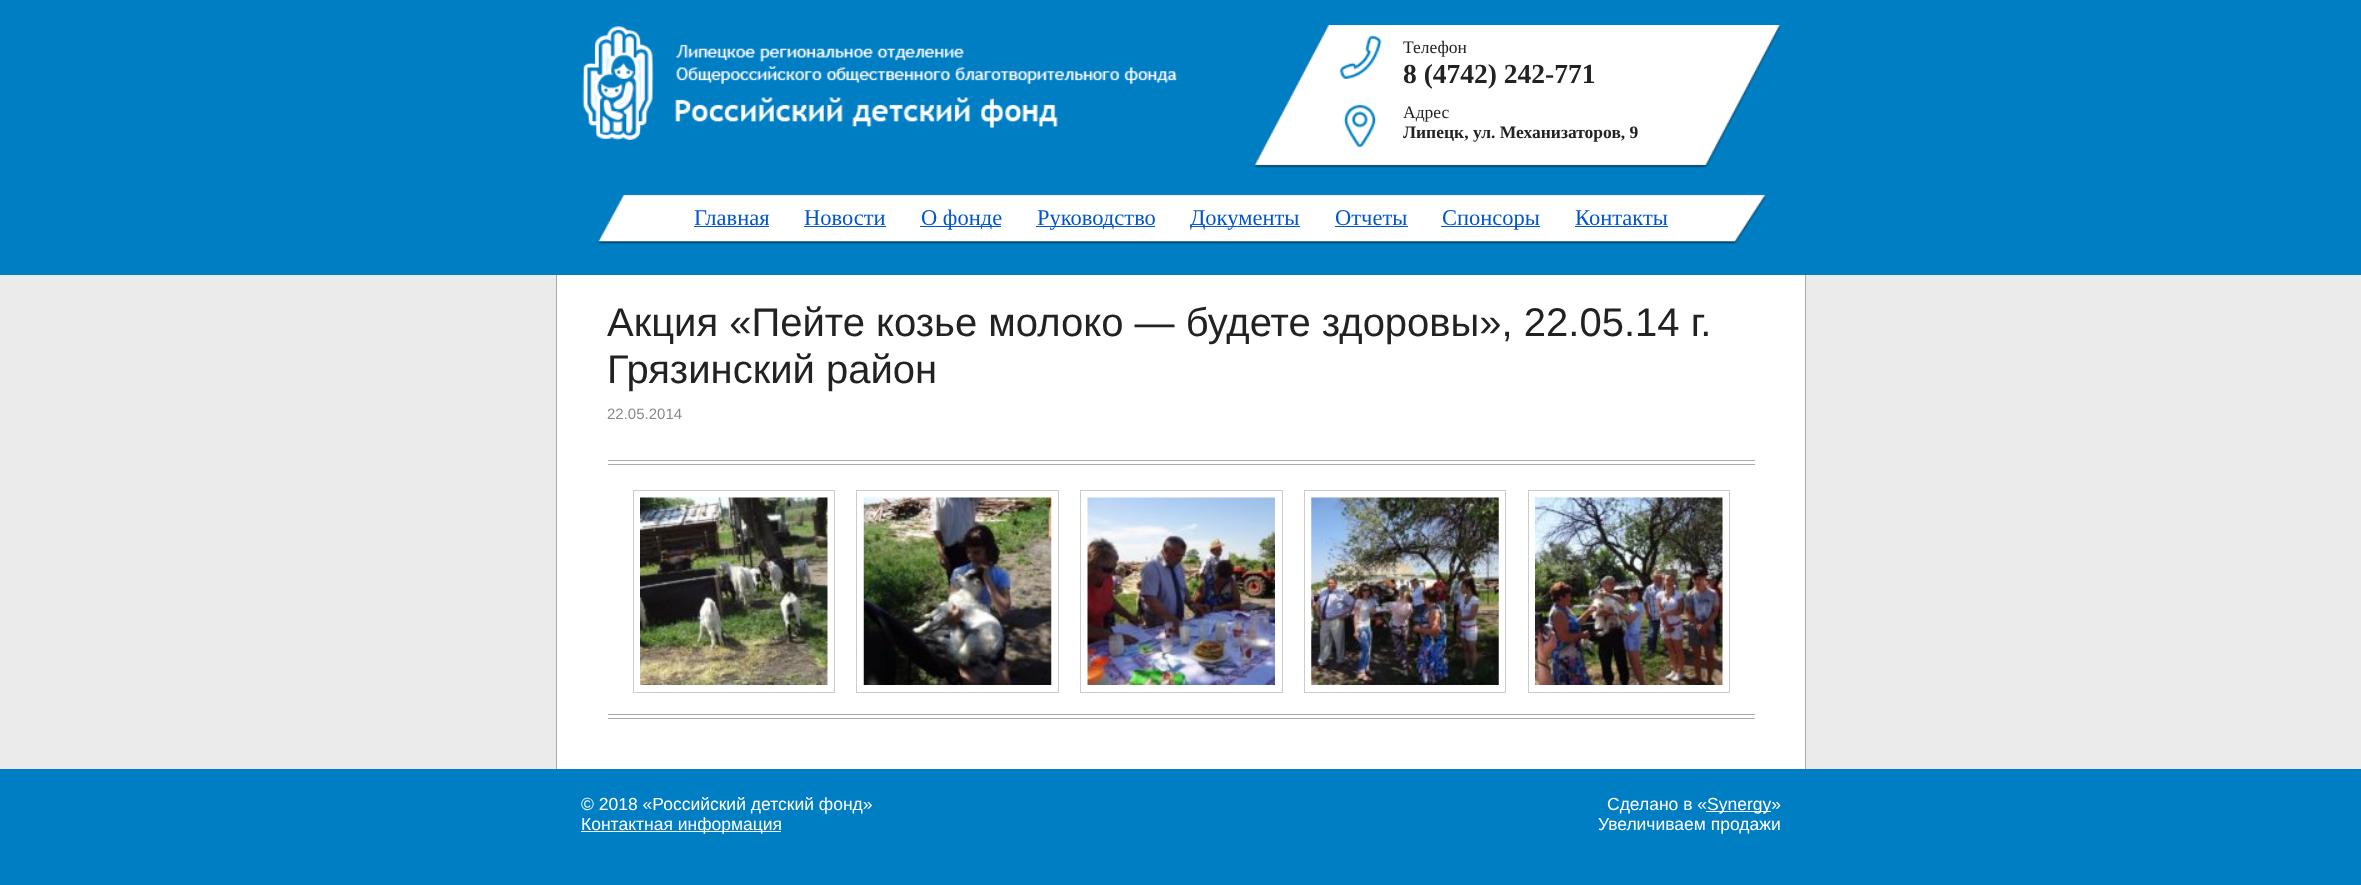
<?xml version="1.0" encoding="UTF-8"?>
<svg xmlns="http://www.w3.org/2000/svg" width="2361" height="885">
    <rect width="100%" height="100%" fill="#007EC4"/>
    <image x="582" y="26" width="595" height="114" href="img_01.png"/>
    <image x="1254" y="25" width="527" height="143" href="img_02.png"/>
    <text x="1403" y="53" font-family="Liberation Serif" font-size="17.5" fill="#222222">Телефон</text>
    <text x="1403" y="83" font-family="Liberation Serif" font-size="27.5" font-weight="700" fill="#222222">8 (4742) 242-771</text>
    <text x="1403" y="118" font-family="Liberation Serif" font-size="17.5" fill="#222222">Адрес</text>
    <text x="1403" y="138" font-family="Liberation Serif" font-size="17.5" font-weight="700" fill="#222222">Липецк, ул. Механизаторов, 9</text>
    <image x="597" y="194" width="1169" height="50" href="img_03.png"/>
    <text x="694" y="225" font-family="Liberation Serif" font-size="22.5" fill="#0055CC">Главная</text>
    <rect x="694" y="226" width="75" height="1" fill="#0055CC"/>
    <text x="804" y="225" font-family="Liberation Serif" font-size="22.5" fill="#0055CC">Новости</text>
    <rect x="804" y="226" width="82" height="1" fill="#0055CC"/>
    <rect x="920" y="226" width="81" height="1" fill="#0055CC"/>
    <text x="921" y="225" font-family="Liberation Serif" font-size="22.5" fill="#0055CC">О фонде</text>
    <rect x="1036" y="226" width="119" height="1" fill="#0055CC"/>
    <text x="1037" y="225" font-family="Liberation Serif" font-size="22.5" fill="#0055CC">Руководство</text>
    <rect x="1190" y="226" width="110" height="1" fill="#0055CC"/>
    <text x="1190" y="225" font-family="Liberation Serif" font-size="22.5" fill="#0055CC">Документы</text>
    <text x="1335" y="225" font-family="Liberation Serif" font-size="22.5" fill="#0055CC">Отчеты</text>
    <rect x="1335" y="226" width="73" height="1" fill="#0055CC"/>
    <rect x="1441" y="226" width="99" height="1" fill="#0055CC"/>
    <text x="1442" y="225" font-family="Liberation Serif" font-size="22.5" fill="#0055CC">Спонсоры</text>
    <text x="1575" y="225" font-family="Liberation Serif" font-size="22.5" fill="#0055CC">Контакты</text>
    <rect x="1575" y="226" width="93" height="1" fill="#0055CC"/>
    <rect x="0" y="275" width="2361" height="494" fill="#ECEBEB"/>
    <rect x="557" y="275" width="1248" height="494" fill="#FFFFFF"/>
    <rect x="1805" y="275" width="1" height="494" fill="#AAAAAA"/>
    <rect x="556" y="275" width="1" height="494" fill="#AAAAAA"/>
    <text font-family="Liberation Sans" font-size="40" fill="#222222">
        <tspan x="607" y="336">Акция «Пейте козье молоко — будете здоровы», 22.05.14 г.</tspan>
        <tspan x="607" y="383">Грязинский район</tspan>
    </text>
    <text x="607" y="419" font-family="Liberation Sans" font-size="15" fill="#888888">22.05.2014</text>
    <rect x="608" y="460" width="1147" height="1" fill="#AAAAAA"/>
    <rect x="608" y="464" width="1147" height="1" fill="#AAAAAA"/>
    <rect x="633.5" y="490.5" width="201" height="202" fill="none" stroke="#CCCCCC"/>
    <image x="640" y="497" width="188" height="188" href="img_04.png"/>
    <rect x="856.5" y="490.5" width="202" height="202" fill="none" stroke="#CCCCCC"/>
    <image x="863" y="497" width="189" height="188" href="img_05.png"/>
    <rect x="1080.5" y="490.5" width="202" height="202" fill="none" stroke="#CCCCCC"/>
    <image x="1087" y="497" width="188" height="188" href="img_06.png"/>
    <rect x="1304.5" y="490.5" width="201" height="202" fill="none" stroke="#CCCCCC"/>
    <image x="1311" y="497" width="188" height="188" href="img_07.png"/>
    <rect x="1528.5" y="490.5" width="201" height="202" fill="none" stroke="#CCCCCC"/>
    <image x="1535" y="497" width="188" height="188" href="img_08.png"/>
    <rect x="608" y="714" width="1147" height="1" fill="#AAAAAA"/>
    <rect x="608" y="718" width="1147" height="1" fill="#AAAAAA"/>
    <text x="581" y="810" font-family="Liberation Sans" font-size="17.5" fill="#FFFFFF">© 2018 «Российский детский фонд»</text>
    <rect x="581" y="831" width="200" height="1" fill="#FFFFFF"/>
    <text x="581" y="830" font-family="Liberation Sans" font-size="17.5" fill="#FFFFFF">Контактная информация</text>
    <text x="1607" y="810" font-family="Liberation Sans" font-size="17.5" fill="#FFFFFF">Сделано в «</text>
    <rect x="1706" y="811" width="65" height="1" fill="#FFFFFF"/>
    <text x="1707" y="810" font-family="Liberation Sans" font-size="17.5" fill="#FFFFFF">Synergy»</text>
    <text x="1598" y="830" font-family="Liberation Sans" font-size="17.5" fill="#FFFFFF">Увеличиваем продажи</text>
</svg>
